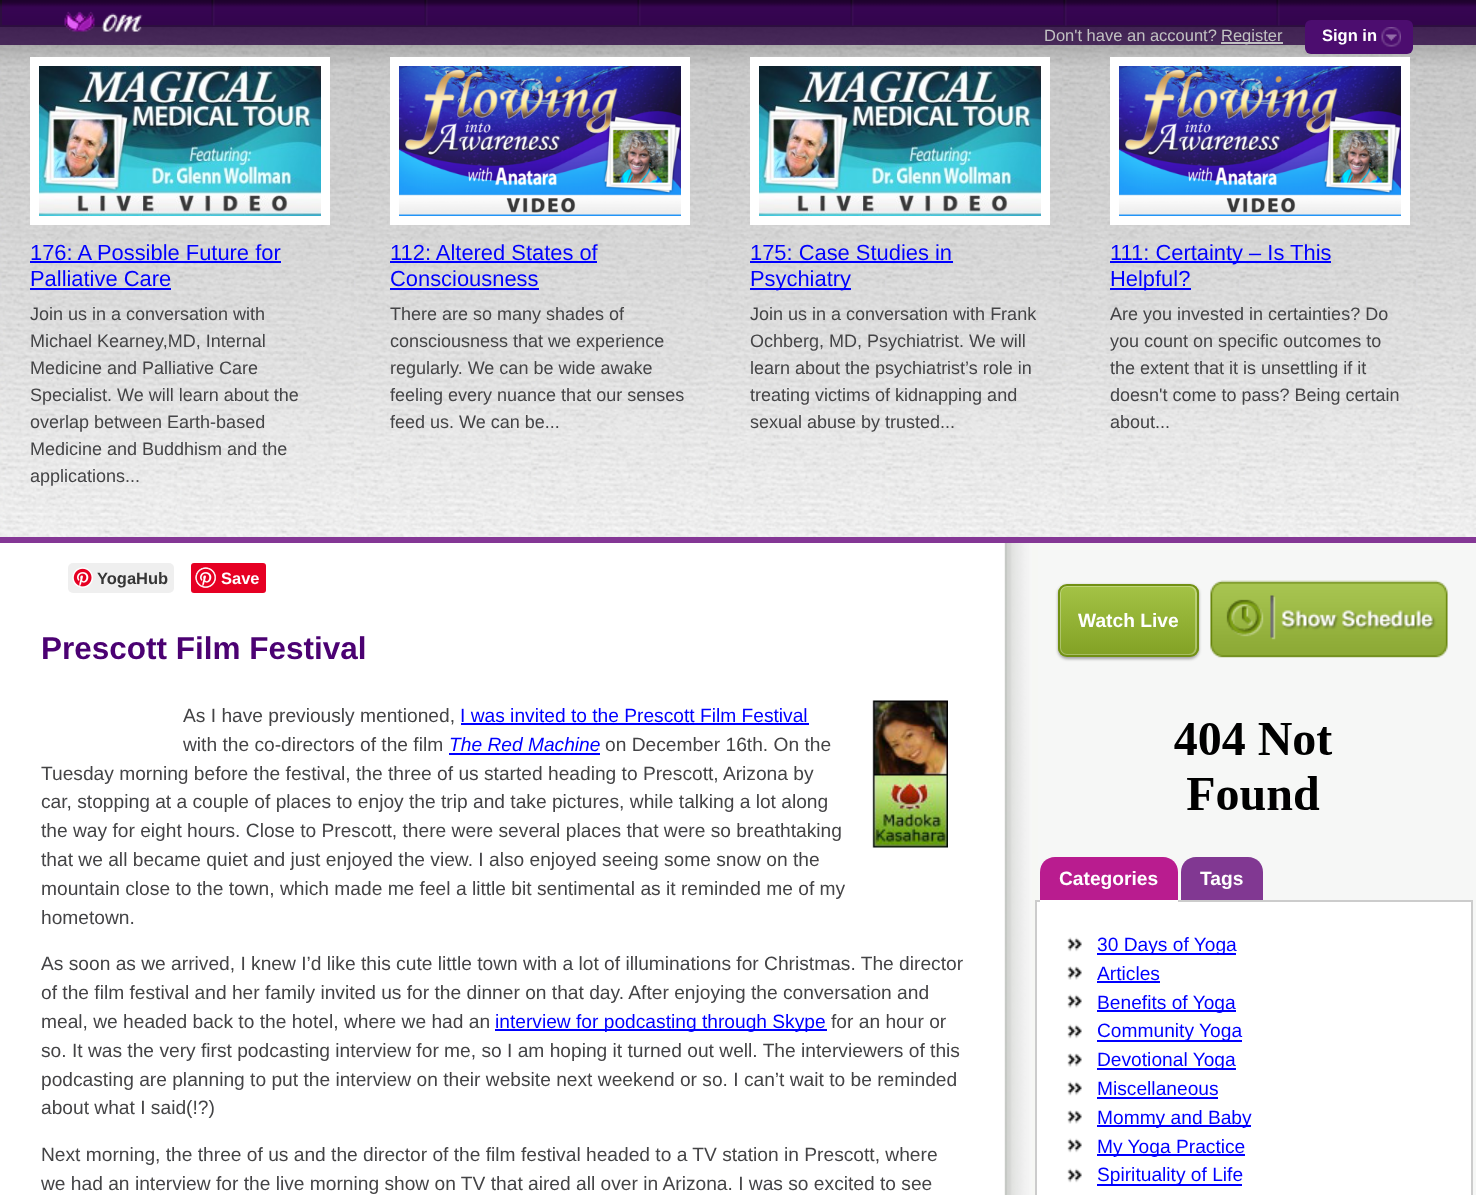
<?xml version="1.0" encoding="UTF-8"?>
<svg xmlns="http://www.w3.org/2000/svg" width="1476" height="1195">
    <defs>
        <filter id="blur1" x="-50%" y="-200%" width="200%" height="500%"><feGaussianBlur stdDeviation="1.5"/></filter>
        <clipPath id="clip1"><rect x="1058" y="584" width="141" height="73" rx="9"/></clipPath>
        <linearGradient id="g1" gradientUnits="userSpaceOnUse" x1="1128" y1="585" x2="1128" y2="656"><stop offset="0" stop-color="#A4C346"/><stop offset="1" stop-color="#82A124"/></linearGradient>
    </defs>
    <rect width="100%" height="100%" fill="#FFFFFF"/>
    <image x="2" y="0" width="1474" height="25" href="img_01.png"/>
    <rect x="1" y="-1" width="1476" height="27" fill="none" stroke="#333333" stroke-width="2"/>
    <image x="211" y="0" width="4" height="26" href="img_02.png"/>
    <image x="424" y="0" width="4" height="26" href="img_02.png"/>
    <image x="637" y="0" width="4" height="26" href="img_03.png"/>
    <image x="850" y="0" width="4" height="26" href="img_02.png"/>
    <image x="1063" y="0" width="4" height="26" href="img_04.png"/>
    <image x="1276" y="0" width="4" height="26" href="img_02.png"/>
    <image x="0" y="27" width="1476" height="510" href="img_08.png"/>
    <image x="0" y="0" width="1476" height="45" href="img_05.png"/>
    <image x="64" y="11" width="79" height="22" href="img_06.png"/>
    <text x="1044" y="41" font-family="Liberation Sans" font-size="16.5" fill="#C2C2C2">Don't have an account?</text>
    <rect x="1221" y="42" width="62" height="2" fill="#C2C2C2"/>
    <text x="1221" y="41" font-family="Liberation Sans" font-size="16.5" fill="#C2C2C2">Register</text>
    <rect x="1305" y="20" width="108" height="34" rx="6" fill="#4C0D6F"/>
    <text x="1322" y="41" font-family="Liberation Sans" font-size="16.5" font-weight="700" fill="#FFFFFF">Sign in</text>
    <image x="1381" y="27" width="20" height="20" href="img_07.png"/>
    <rect x="0" y="537" width="1476" height="6" fill="#843795"/>
    <rect x="34.5" y="61.5" width="291" height="159" fill="none" stroke="#FFFFFF" stroke-width="9"/>
    <image x="39" y="66" width="282" height="150" href="img_09.png"/>
    <text x="30" y="260" font-family="Liberation Sans" font-size="21.9" fill="#0000FF">176: A Possible Future for</text>
    <rect x="30" y="261" width="251" height="2" fill="#0000FF"/>
    <text x="30" y="286" font-family="Liberation Sans" font-size="21.9" fill="#0000FF">Palliative Care</text>
    <rect x="30" y="288" width="141" height="2" fill="#0000FF"/>
    <text font-family="Liberation Sans" font-size="18" fill="#444446">
        <tspan x="30" y="320">Join us in a conversation with</tspan>
        <tspan x="30" y="347">Michael Kearney,MD, Internal</tspan>
        <tspan x="30" y="374">Medicine and Palliative Care</tspan>
        <tspan x="30" y="401">Specialist. We will learn about the</tspan>
        <tspan x="30" y="428">overlap between Earth-based</tspan>
        <tspan x="30" y="455">Medicine and Buddhism and the</tspan>
        <tspan x="30" y="482">applications...</tspan>
    </text>
    <rect x="394.5" y="61.5" width="291" height="159" fill="none" stroke="#FFFFFF" stroke-width="9"/>
    <image x="399" y="66" width="282" height="150" href="img_10.png"/>
    <text x="390" y="260" font-family="Liberation Sans" font-size="21.9" fill="#0000FF">112: Altered States of</text>
    <rect x="390" y="261" width="207" height="2" fill="#0000FF"/>
    <text x="390" y="286" font-family="Liberation Sans" font-size="21.9" fill="#0000FF">Consciousness</text>
    <rect x="390" y="288" width="149" height="2" fill="#0000FF"/>
    <text font-family="Liberation Sans" font-size="18" fill="#444446">
        <tspan x="390" y="320">There are so many shades of</tspan>
        <tspan x="390" y="347">consciousness that we experience</tspan>
        <tspan x="390" y="374">regularly. We can be wide awake</tspan>
        <tspan x="390" y="401">feeling every nuance that our senses</tspan>
        <tspan x="390" y="428">feed us. We can be...</tspan>
    </text>
    <rect x="754.5" y="61.5" width="291" height="159" fill="none" stroke="#FFFFFF" stroke-width="9"/>
    <image x="759" y="66" width="282" height="150" href="img_09.png"/>
    <text x="750" y="260" font-family="Liberation Sans" font-size="21.9" fill="#0000FF">175: Case Studies in</text>
    <rect x="750" y="261" width="203" height="2" fill="#0000FF"/>
    <rect x="750" y="288" width="101" height="2" fill="#0000FF"/>
    <text x="750" y="286" font-family="Liberation Sans" font-size="21.9" fill="#0000FF">Psychiatry</text>
    <text font-family="Liberation Sans" font-size="18" fill="#444446">
        <tspan x="750" y="320">Join us in a conversation with Frank</tspan>
        <tspan x="750" y="347">Ochberg, MD, Psychiatrist. We will</tspan>
        <tspan x="750" y="374">learn about the psychiatrist’s role in</tspan>
        <tspan x="750" y="401">treating victims of kidnapping and</tspan>
        <tspan x="750" y="428">sexual abuse by trusted...</tspan>
    </text>
    <rect x="1114.5" y="61.5" width="291" height="159" fill="none" stroke="#FFFFFF" stroke-width="9"/>
    <image x="1119" y="66" width="282" height="150" href="img_11.png"/>
    <rect x="1110" y="261" width="221" height="2" fill="#0000FF"/>
    <text x="1110" y="260" font-family="Liberation Sans" font-size="21.9" fill="#0000FF">111: Certainty – Is This</text>
    <rect x="1110" y="288" width="81" height="2" fill="#0000FF"/>
    <text x="1110" y="286" font-family="Liberation Sans" font-size="21.9" fill="#0000FF">Helpful?</text>
    <text font-family="Liberation Sans" font-size="18" fill="#444446">
        <tspan x="1110" y="320">Are you invested in certainties? Do</tspan>
        <tspan x="1110" y="347">you count on specific outcomes to</tspan>
        <tspan x="1110" y="374">the extent that it is unsettling if it</tspan>
        <tspan x="1110" y="401">doesn't come to pass? Being certain</tspan>
        <tspan x="1110" y="428">about...</tspan>
    </text>
    <image x="1004" y="543" width="472" height="652" href="img_12.png"/>
    <rect x="68" y="563" width="106" height="30" rx="5" fill="#EFEFEF"/>
    <image x="72" y="567" width="21" height="21" href="img_13.png"/>
    <text x="97" y="584" font-family="Liberation Sans" font-size="16.5" font-weight="700" fill="#363636">YogaHub</text>
    <rect x="191" y="563" width="75" height="30" rx="3" fill="#E60023"/>
    <image x="195" y="567" width="21" height="21" href="img_14.png"/>
    <text x="221" y="584" font-family="Liberation Sans" font-size="16.5" font-weight="700" fill="#FFFFFF">Save</text>
    <text x="41" y="659" font-family="Liberation Sans" font-size="31.5" font-weight="700" fill="#4B0172">Prescott Film Festival</text>
    <text x="183" y="722" font-family="Liberation Sans" font-size="19.2" fill="#444446">As I have previously mentioned,</text>
    <text x="460" y="722" font-family="Liberation Sans" font-size="19.2" fill="#0000FF">I was invited to the Prescott Film Festival</text>
    <rect x="461" y="723" width="348" height="2" fill="#0000FF"/>
    <text x="183" y="751" font-family="Liberation Sans" font-size="19.2" fill="#444446">with the co-directors of the film</text>
    <text x="449" y="751" font-family="Liberation Sans" font-size="19.2" font-style="italic" fill="#0000FF">The Red Machine</text>
    <rect x="449" y="753" width="151" height="2" fill="#0000FF"/>
    <text x="605" y="751" font-family="Liberation Sans" font-size="19.2" fill="#444446">on December 16th. On the</text>
    <text font-family="Liberation Sans" font-size="19.2" fill="#444446">
        <tspan x="41" y="780">Tuesday morning before the festival, the three of us started heading to Prescott, Arizona by</tspan>
        <tspan x="41" y="808">car, stopping at a couple of places to enjoy the trip and take pictures, while talking a lot along</tspan>
        <tspan x="41" y="837">the way for eight hours. Close to Prescott, there were several places that were so breathtaking</tspan>
        <tspan x="41" y="866">that we all became quiet and just enjoyed the view. I also enjoyed seeing some snow on the</tspan>
        <tspan x="41" y="895">mountain close to the town, which made me feel a little bit sentimental as it reminded me of my</tspan>
        <tspan x="41" y="924">hometown.</tspan>
    </text>
    <image x="872" y="700" width="76" height="148" href="img_15.png"/>
    <text font-family="Liberation Sans" font-size="19.2" fill="#444446">
        <tspan x="41" y="970">As soon as we arrived, I knew I’d like this cute little town with a lot of illuminations for Christmas. The director</tspan>
        <tspan x="41" y="999">of the film festival and her family invited us for the dinner on that day. After enjoying the conversation and</tspan>
        <tspan x="41" y="1028">meal, we headed back to the hotel, where we had an</tspan>
    </text>
    <rect x="495" y="1029" width="332" height="2" fill="#0000FF"/>
    <text x="495" y="1028" font-family="Liberation Sans" font-size="19.2" fill="#0000FF">interview for podcasting through Skype</text>
    <text x="831" y="1028" font-family="Liberation Sans" font-size="19.2" fill="#444446">for an hour or</text>
    <text font-family="Liberation Sans" font-size="19.2" fill="#444446">
        <tspan x="41" y="1057">so. It was the very first podcasting interview for me, so I am hoping it turned out well. The interviewers of this</tspan>
        <tspan x="41" y="1086">podcasting are planning to put the interview on their website next weekend or so. I can’t wait to be reminded</tspan>
        <tspan x="41" y="1114">about what I said(!?)</tspan>
    </text>
    <text font-family="Liberation Sans" font-size="19.2" fill="#444446">
        <tspan x="41" y="1161">Next morning, the three of us and the director of the film festival headed to a TV station in Prescott, where</tspan>
        <tspan x="41" y="1190">we had an interview for the live morning show on TV that aired all over in Arizona. I was so excited to see</tspan>
    </text>
    <rect x="1058" y="585" width="141" height="74" rx="9" fill="#000000" fill-opacity="0.35" filter="url(#blur1)"/>
    <g clip-path="url(#clip1)">
        <rect x="1058" y="585" width="141" height="71" fill="url(#g1)"/>
    </g>
    <rect x="1060" y="586" width="136" height="69" rx="7" fill="none" stroke="#FFFFFF" stroke-opacity="0.3" stroke-width="2"/>
    <rect x="1059" y="585" width="139" height="71" rx="8" fill="none" stroke="#719013" stroke-width="2"/>
    <text x="1078" y="627" font-family="Liberation Sans" font-size="19.2" font-weight="700" fill="#FFFFFF">Watch Live</text>
    <image x="1210" y="580" width="238" height="78" href="img_16.png"/>
    <image x="1174" y="723" width="159" height="87" href="img_17.png"/>
    <rect x="1036" y="901" width="436" height="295" fill="#FFFFFF" stroke="#CCCCCC" stroke-width="2"/>
    <path d="M 1055 857 H 1163 C 1171.5 857 1178 863.5 1178 872 V 902 H 1040 V 872 C 1040 863.5 1046.5 857 1055 857 Z" fill="#B91C8F"/>
    <text x="1059" y="885" font-family="Liberation Sans" font-size="19.2" font-weight="700" fill="#FFFFFF">Categories</text>
    <rect x="1040" y="900" width="138" height="2" fill="#FFFFFF"/>
    <image x="1067" y="937" width="15" height="15" href="img_18.png"/>
    <rect x="1097" y="953" width="139" height="2" fill="#0000FF"/>
    <text x="1097" y="951" font-family="Liberation Sans" font-size="19.2" fill="#0000FF">30 Days of Yoga</text>
    <image x="1067" y="966" width="15" height="14" href="img_19.png"/>
    <text x="1097" y="980" font-family="Liberation Sans" font-size="19.2" fill="#0000FF">Articles</text>
    <rect x="1097" y="981" width="63" height="2" fill="#0000FF"/>
    <image x="1067" y="994" width="15" height="15" href="img_18.png"/>
    <rect x="1097" y="1010" width="139" height="2" fill="#0000FF"/>
    <text x="1097" y="1009" font-family="Liberation Sans" font-size="19.2" fill="#0000FF">Benefits of Yoga</text>
    <image x="1067" y="1024" width="15" height="15" href="img_18.png"/>
    <rect x="1097" y="1040" width="145" height="2" fill="#0000FF"/>
    <text x="1097" y="1037" font-family="Liberation Sans" font-size="19.2" fill="#0000FF">Community Yoga</text>
    <image x="1067" y="1053" width="15" height="14" href="img_19.png"/>
    <rect x="1097" y="1068" width="139" height="2" fill="#0000FF"/>
    <text x="1097" y="1066" font-family="Liberation Sans" font-size="19.2" fill="#0000FF">Devotional Yoga</text>
    <image x="1067" y="1081" width="15" height="15" href="img_18.png"/>
    <text x="1097" y="1095" font-family="Liberation Sans" font-size="19.2" fill="#0000FF">Miscellaneous</text>
    <rect x="1097" y="1097" width="121" height="2" fill="#0000FF"/>
    <image x="1067" y="1110" width="15" height="14" href="img_19.png"/>
    <rect x="1097" y="1125" width="154" height="2" fill="#0000FF"/>
    <text x="1097" y="1124" font-family="Liberation Sans" font-size="19.2" fill="#0000FF">Mommy and Baby</text>
    <image x="1067" y="1138" width="15" height="15" href="img_18.png"/>
    <rect x="1097" y="1154" width="148" height="2" fill="#0000FF"/>
    <text x="1097" y="1153" font-family="Liberation Sans" font-size="19.2" fill="#0000FF">My Yoga Practice</text>
    <image x="1067" y="1168" width="15" height="15" href="img_18.png"/>
    <rect x="1097" y="1184" width="145" height="2" fill="#0000FF"/>
    <text x="1097" y="1181" font-family="Liberation Sans" font-size="19.2" fill="#0000FF">Spirituality of Life</text>
    <path d="M 1196 857 H 1248 C 1256.5 857 1263 863.5 1263 872 V 900 H 1181 V 872 C 1181 863.5 1187.5 857 1196 857 Z" fill="#813892"/>
    <text x="1200" y="885" font-family="Liberation Sans" font-size="19.2" font-weight="700" fill="#FFFFFF">Tags</text>
</svg>
